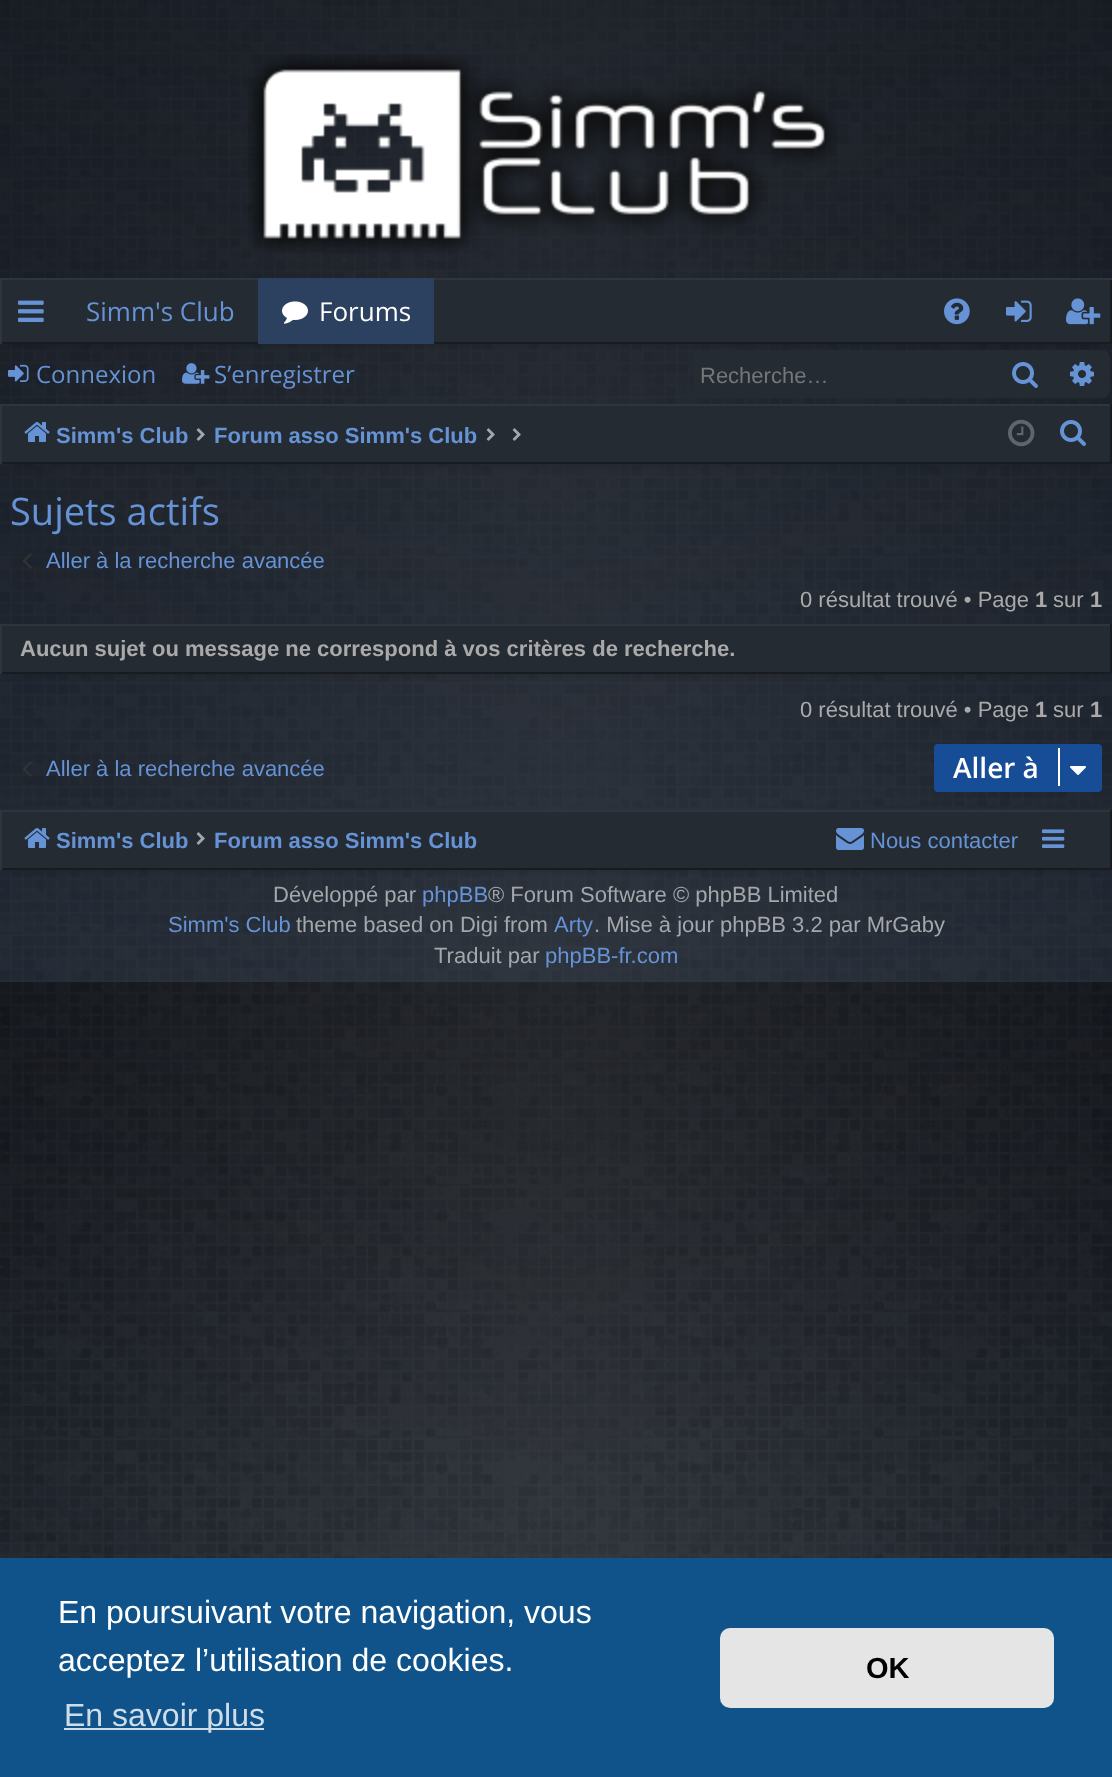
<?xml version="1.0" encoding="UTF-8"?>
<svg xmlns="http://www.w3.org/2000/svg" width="1112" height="1777">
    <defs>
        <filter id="blur1" x="-50%" y="-200%" width="200%" height="500%"><feGaussianBlur stdDeviation="5"/></filter>
        <clipPath id="clip1"><rect x="0" y="278" width="1112" height="66"/></clipPath>
    </defs>
    <rect width="100%" height="100%" fill="#1C232E"/>
    <image x="0" y="982" width="1112" height="576" href="img_01.png"/>
    <image x="0" y="0" width="1112" height="1558" href="img_02.png"/>
    <image x="248" y="54" width="590" height="199" href="img_03.png"/>
    <rect x="10" y="298" width="1092" height="46" fill="#000000" fill-opacity="0.2" filter="url(#blur1)"/>
    <rect x="2" y="280" width="1108" height="62" fill="#252B33"/>
    <g clip-path="url(#clip1)">
        <path d="M -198 80 H 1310 V 542 H -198 Z M -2 276 H 1110 V 342 H -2 Z" fill="#181C21" fill-rule="evenodd"/>
        <path d="M -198 80 H 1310 V 542 H -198 Z M 2 280 H 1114 V 346 H 2 Z" fill="#2E353F" fill-rule="evenodd"/>
    </g>
    <image x="18" y="300" width="26" height="22" href="img_04.png"/>
    <text x="86" y="321" font-family="Open Sans" font-size="26" fill="#6593D6">Simm's Club</text>
    <rect x="258" y="278" width="176" height="66" fill="#2C415F"/>
    <image x="282" y="301" width="26" height="23" href="img_05.png"/>
    <text x="319" y="321" font-family="Open Sans" font-size="26" fill="#FFFFFF">Forums</text>
    <image x="944" y="298" width="26" height="27" href="img_06.png"/>
    <image x="1006" y="300" width="26" height="22" href="img_07.png"/>
    <image x="1066" y="298" width="35" height="27" href="img_08.png"/>
    <image x="8" y="364" width="21" height="18" href="img_09.png"/>
    <text x="36" y="383" font-family="Open Sans" font-size="24" fill="#6593D6">Connexion</text>
    <image x="182" y="363" width="28" height="21" href="img_10.png"/>
    <text x="214" y="383" font-family="Open Sans" font-size="24" fill="#6593D6">S’enregistrer</text>
    <rect x="694" y="350" width="300" height="48" fill="#252B33"/>
    <text x="700" y="383" font-family="Liberation Sans" font-size="22" fill="#757677">Recherche…</text>
    <rect x="994" y="350" width="60" height="48" fill="#252B33"/>
    <image x="1012" y="362" width="26" height="26" href="img_11.png"/>
    <path d="M 1054 350 H 1102 C 1106.5 350 1110 353.5 1110 358 V 390 C 1110 394.5 1106.5 398 1102 398 H 1054 Z" fill="#252B33"/>
    <image x="1070" y="362" width="24" height="24" href="img_12.png"/>
    <rect x="10" y="424" width="1092" height="40" fill="#000000" fill-opacity="0.2" filter="url(#blur1)"/>
    <rect x="2" y="406" width="1108" height="56" fill="#252B33"/>
    <rect x="0" y="404" width="1112" height="2" fill="#2E353F"/>
    <rect x="1110" y="404" width="2" height="60" fill="#181C21"/>
    <rect x="0" y="462" width="1112" height="2" fill="#181C21"/>
    <rect x="0" y="404" width="2" height="60" fill="#2E353F"/>
    <image x="24" y="422" width="26" height="20" href="img_13.png"/>
    <text x="56" y="443" font-family="Liberation Sans" font-size="22" font-weight="700" fill="#6593D6">Simm's Club</text>
    <image x="196" y="428" width="9" height="13" href="img_14.png"/>
    <text x="214" y="443" font-family="Liberation Sans" font-size="22" font-weight="700" fill="#6593D6">Forum asso Simm's Club</text>
    <image x="486" y="428" width="9" height="13" href="img_14.png"/>
    <image x="512" y="428" width="9" height="13" href="img_14.png"/>
    <image x="1008" y="419" width="27" height="28" href="img_15.png"/>
    <image x="1060" y="420" width="26" height="26" href="img_11.png"/>
    <text x="10" y="525" font-family="Open Sans" font-size="38" fill="#6593D6">Sujets actifs</text>
    <image x="23" y="553" width="9" height="16" href="img_16.png"/>
    <text x="46" y="568" font-family="Liberation Sans" font-size="22" fill="#6593D6">Aller à la recherche avancée</text>
    <text x="800" y="607" font-family="Liberation Sans" font-size="22" fill="#AAAAAA">0 résultat trouvé • Page</text>
    <text x="1035" y="607" font-family="Liberation Sans" font-size="22" font-weight="700" fill="#AAAAAA">1</text>
    <text x="1053" y="607" font-family="Liberation Sans" font-size="22" fill="#AAAAAA">sur</text>
    <text x="1090" y="607" font-family="Liberation Sans" font-size="22" font-weight="700" fill="#AAAAAA">1</text>
    <rect x="10" y="644" width="1092" height="30" fill="#000000" fill-opacity="0.2" filter="url(#blur1)"/>
    <rect x="2" y="626" width="1108" height="46" fill="#252B33"/>
    <rect x="0" y="624" width="1112" height="2" fill="#2E353F"/>
    <rect x="1110" y="624" width="2" height="50" fill="#181C21"/>
    <rect x="0" y="672" width="1112" height="2" fill="#181C21"/>
    <rect x="0" y="624" width="2" height="50" fill="#2E353F"/>
    <text x="20" y="656" font-family="Liberation Sans" font-size="22" font-weight="700" fill="#AAAAAA">Aucun sujet ou message ne correspond à vos critères de recherche.</text>
    <text x="800" y="717" font-family="Liberation Sans" font-size="22" fill="#AAAAAA">0 résultat trouvé • Page</text>
    <text x="1035" y="717" font-family="Liberation Sans" font-size="22" font-weight="700" fill="#AAAAAA">1</text>
    <text x="1053" y="717" font-family="Liberation Sans" font-size="22" fill="#AAAAAA">sur</text>
    <text x="1090" y="717" font-family="Liberation Sans" font-size="22" font-weight="700" fill="#AAAAAA">1</text>
    <image x="23" y="761" width="9" height="16" href="img_17.png"/>
    <text x="46" y="776" font-family="Liberation Sans" font-size="22" fill="#6593D6">Aller à la recherche avancée</text>
    <rect x="935" y="745" width="166" height="46" rx="3" fill="#174C97" stroke="#174C97" stroke-width="2"/>
    <text x="953" y="778" font-family="Open Sans" font-size="28" font-weight="600" fill="#FFFFFF">Aller à</text>
    <rect x="1058" y="748" width="2" height="38" fill="#FFFFFF"/>
    <image x="1070" y="766" width="16" height="9" href="img_18.png"/>
    <rect x="10" y="830" width="1092" height="40" fill="#000000" fill-opacity="0.2" filter="url(#blur1)"/>
    <rect x="2" y="812" width="1108" height="56" fill="#252B33"/>
    <rect x="0" y="810" width="1112" height="2" fill="#2E353F"/>
    <rect x="1110" y="810" width="2" height="60" fill="#181C21"/>
    <rect x="0" y="868" width="1112" height="2" fill="#181C21"/>
    <rect x="0" y="810" width="2" height="60" fill="#2E353F"/>
    <image x="24" y="828" width="26" height="20" href="img_13.png"/>
    <text x="56" y="848" font-family="Liberation Sans" font-size="22" font-weight="700" fill="#6593D6">Simm's Club</text>
    <image x="196" y="832" width="9" height="13" href="img_14.png"/>
    <text x="214" y="848" font-family="Liberation Sans" font-size="22" font-weight="700" fill="#6593D6">Forum asso Simm's Club</text>
    <image x="836" y="828" width="28" height="22" href="img_19.png"/>
    <text x="870" y="848" font-family="Liberation Sans" font-size="22" fill="#6593D6">Nous contacter</text>
    <image x="1042" y="829" width="23" height="19" href="img_20.png"/>
    <text x="273" y="902" font-family="Liberation Sans" font-size="22" fill="#A4A7AB">Développé par</text>
    <text x="422" y="902" font-family="Liberation Sans" font-size="22" fill="#6593D6">phpBB</text>
    <text x="488" y="902" font-family="Liberation Sans" font-size="22" fill="#A4A7AB">® Forum Software © phpBB Limited</text>
    <text x="168" y="932" font-family="Liberation Sans" font-size="22" fill="#6593D6">Simm's Club</text>
    <text x="296" y="932" font-family="Liberation Sans" font-size="22" fill="#A4A7AB">theme based on Digi from</text>
    <text x="554" y="932" font-family="Liberation Sans" font-size="22" fill="#6593D6">Arty</text>
    <text x="594" y="932" font-family="Liberation Sans" font-size="22" fill="#A4A7AB">. Mise à jour phpBB 3.2 par MrGaby</text>
    <text x="434" y="963" font-family="Liberation Sans" font-size="22" fill="#A4A7AB">Traduit par</text>
    <text x="545" y="963" font-family="Liberation Sans" font-size="22" fill="#6593D6">phpBB-fr.com</text>
    <rect x="0" y="1558" width="1112" height="219" fill="#0F538A"/>
    <text font-family="Liberation Sans" font-size="32" fill="#FFFFFF">
        <tspan x="58" y="1623">En poursuivant votre navigation, vous</tspan>
        <tspan x="58" y="1671">acceptez l’utilisation de cookies.</tspan>
    </text>
    <rect x="64" y="1728" width="200" height="2" fill="#CFDDE8"/>
    <text x="64" y="1726" font-family="Liberation Sans" font-size="32" fill="#CFDDE8">En savoir plus</text>
    <rect x="720" y="1628" width="334" height="80" rx="10" fill="#E5E5E5"/>
    <text x="866" y="1678" font-family="Liberation Sans" font-size="29" font-weight="700" fill="#000000">OK</text>
</svg>
